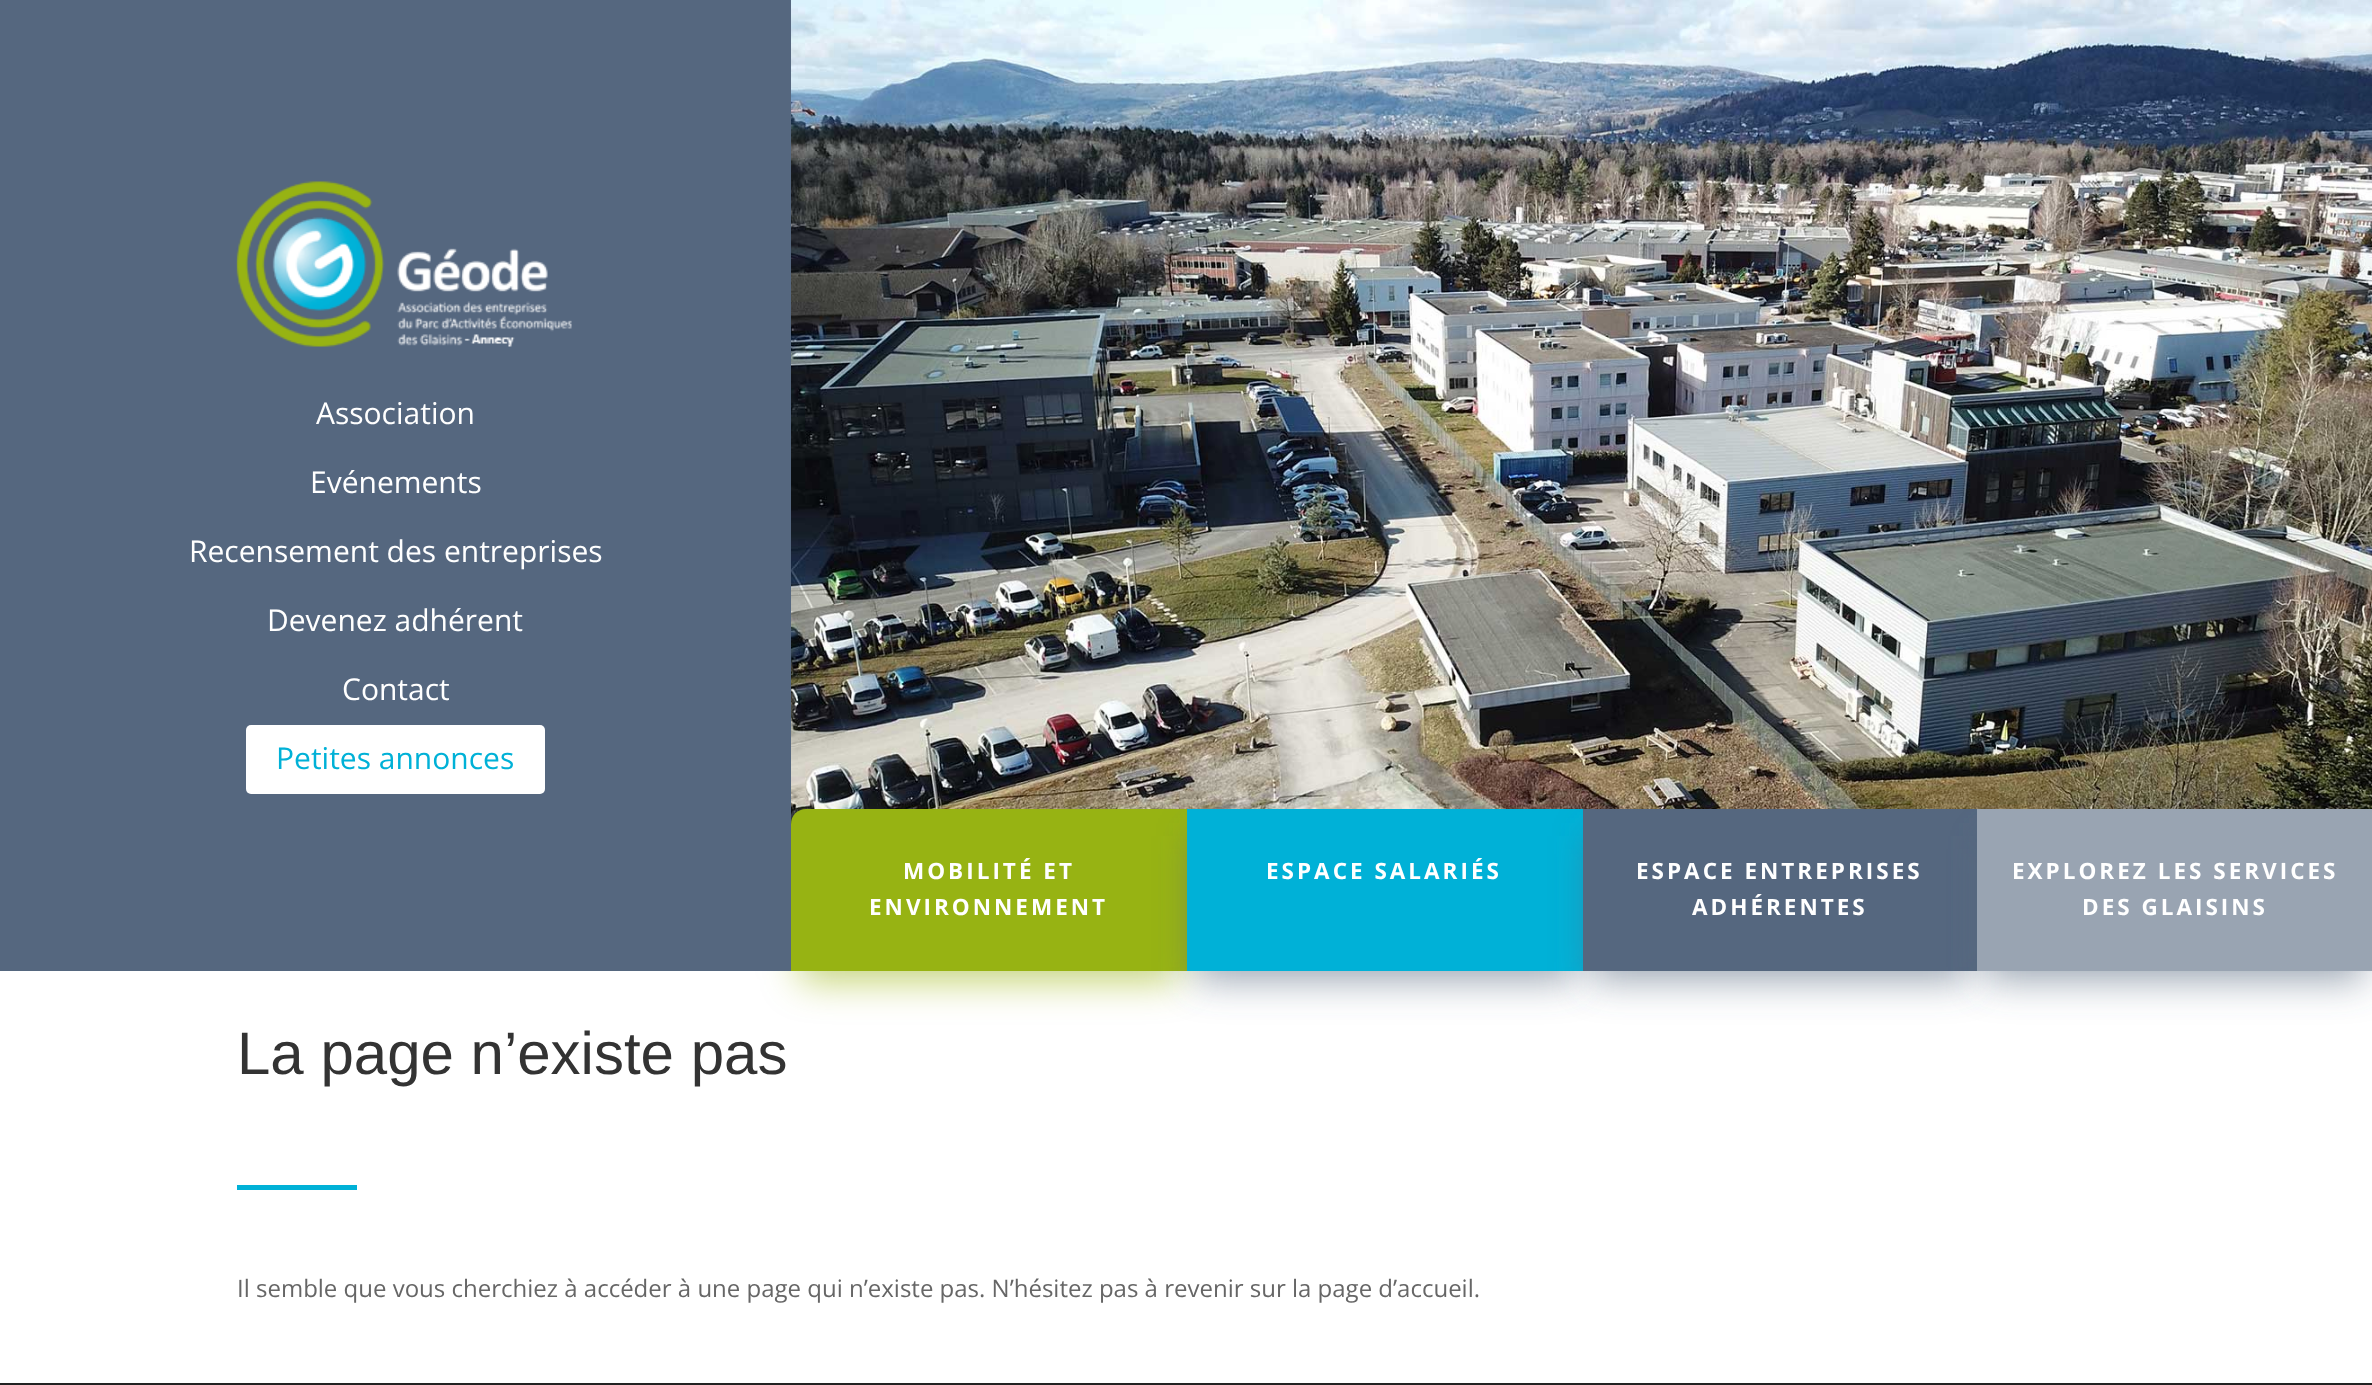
<?xml version="1.0" encoding="UTF-8"?>
<svg xmlns="http://www.w3.org/2000/svg" width="2372" height="1385">
    <defs>
        <filter id="blur1" x="-50%" y="-200%" width="200%" height="500%"><feGaussianBlur stdDeviation="19"/></filter>
    </defs>
    <rect width="100%" height="100%" fill="#FFFFFF"/>
    <image x="791" y="0" width="1581" height="824" href="img_02.png"/>
    <rect x="800" y="836" width="378" height="144" rx="6" fill="#97B313" fill-opacity="0.6" filter="url(#blur1)"/>
    <rect x="0" y="0" width="791" height="971" fill="#55677F"/>
    <image x="236" y="181" width="336" height="166" href="img_01.png"/>
    <text x="316" y="424" font-family="Open Sans" font-size="30" fill="#FFFFFF">Association</text>
    <text x="310" y="493" font-family="Open Sans" font-size="30" fill="#FFFFFF">Evénements</text>
    <text x="189" y="562" font-family="Open Sans" font-size="30" fill="#FFFFFF">Recensement des entreprises</text>
    <text x="267" y="631" font-family="Open Sans" font-size="30" fill="#FFFFFF">Devenez adhérent</text>
    <text x="342" y="700" font-family="Open Sans" font-size="30" fill="#FFFFFF">Contact</text>
    <rect x="246" y="725" width="299" height="69" rx="5" fill="#FFFFFF"/>
    <text x="276" y="769" font-family="Open Sans" font-size="30" fill="#00B1D7">Petites annonces</text>
    <path d="M 806 809 H 1187 V 971 H 791 V 824 C 791 815.5 797.5 809 806 809 Z" fill="#97B313"/>
    <text x="903" y="879" font-family="Open Sans" font-size="22.5" font-weight="700" letter-spacing="3" fill="#FFFFFF">MOBILITÉ ET</text>
    <text x="869" y="915" font-family="Open Sans" font-size="22.5" font-weight="700" letter-spacing="3" fill="#FFFFFF">ENVIRONNEMENT</text>
    <rect x="1196" y="836" width="378" height="144" fill="#55677F" fill-opacity="0.6" filter="url(#blur1)"/>
    <rect x="1187" y="809" width="396" height="162" fill="#00B1D7"/>
    <text x="1266" y="879" font-family="Open Sans" font-size="22.5" font-weight="700" letter-spacing="3" fill="#FFFFFF">ESPACE SALARIÉS</text>
    <rect x="1592" y="836" width="376" height="144" fill="#55677F" fill-opacity="0.6" filter="url(#blur1)"/>
    <rect x="1583" y="809" width="394" height="162" fill="#55677F"/>
    <text x="1636" y="879" font-family="Open Sans" font-size="22.5" font-weight="700" letter-spacing="3" fill="#FFFFFF">ESPACE ENTREPRISES</text>
    <text x="1692" y="915" font-family="Open Sans" font-size="22.5" font-weight="700" letter-spacing="3" fill="#FFFFFF">ADHÉRENTES</text>
    <rect x="1986" y="836" width="378" height="144" fill="#55677F" fill-opacity="0.6" filter="url(#blur1)"/>
    <rect x="1977" y="809" width="395" height="162" fill="#99A4B2"/>
    <text x="2012" y="879" font-family="Open Sans" font-size="22.5" font-weight="700" letter-spacing="3" fill="#FFFFFF">EXPLOREZ LES SERVICES</text>
    <text x="2082" y="915" font-family="Open Sans" font-size="22.5" font-weight="700" letter-spacing="3" fill="#FFFFFF">DES GLAISINS</text>
    <text x="237" y="1074" font-family="Liberation Sans" font-size="60" fill="#333333">La page n’existe pas</text>
    <rect x="237" y="1185" width="120" height="5" fill="#00B1D7"/>
    <text x="237" y="1297" font-family="Open Sans" font-size="24" fill="#666666">Il semble que vous cherchiez à accéder à une page qui n’existe pas. N’hésitez pas à revenir sur la page d’accueil.</text>
    <rect x="0" y="1383" width="2372" height="2" fill="#222222"/>
</svg>
